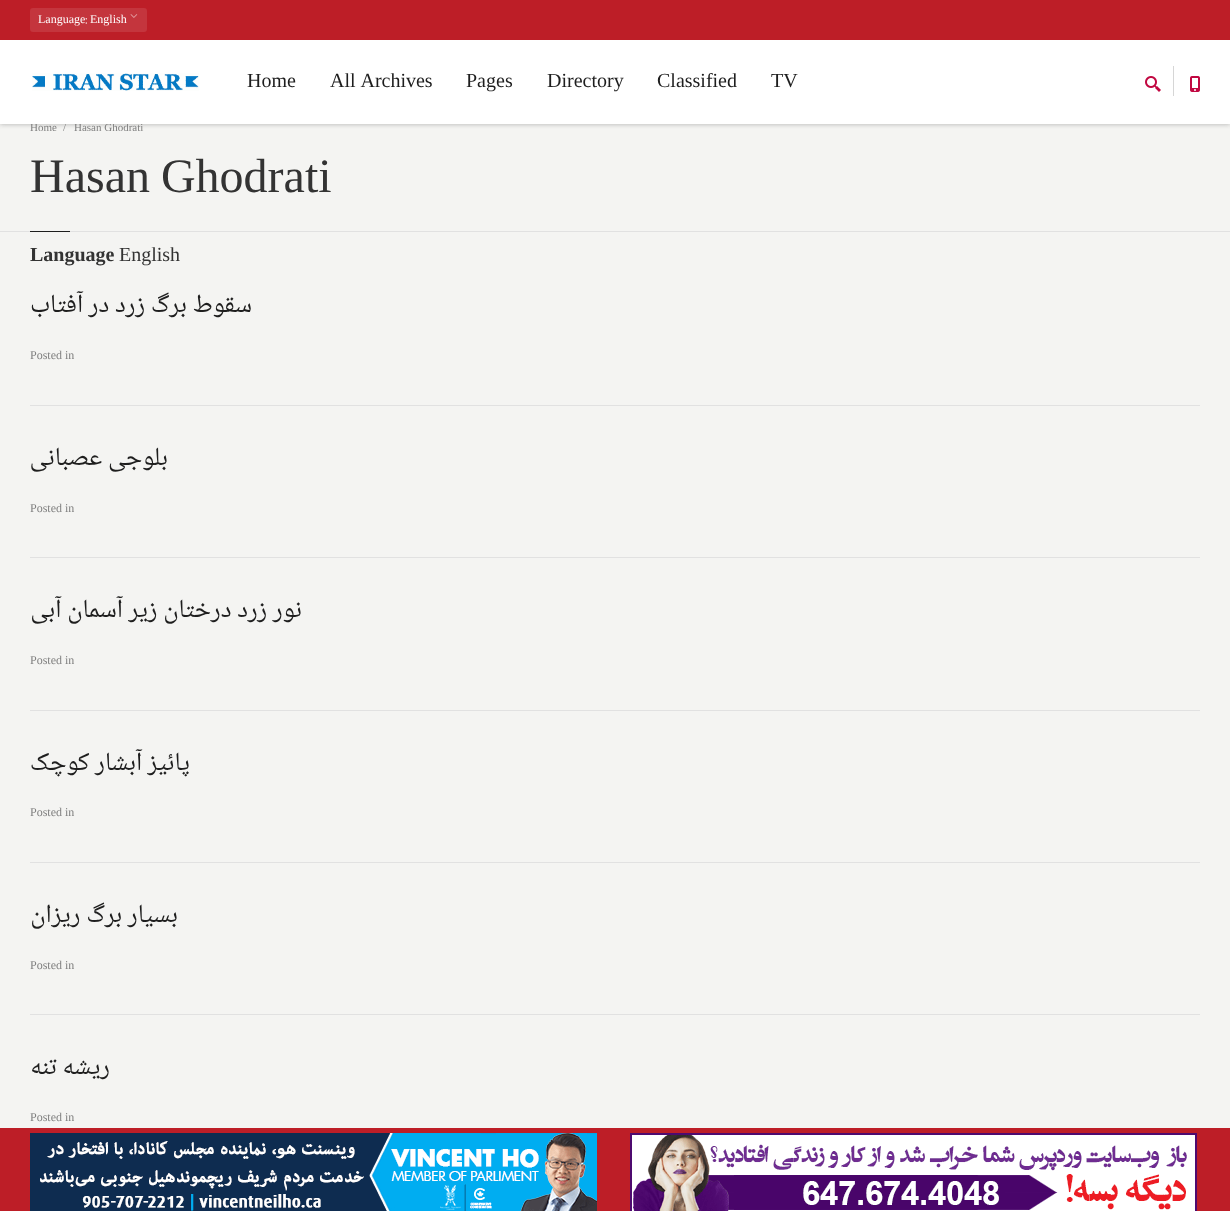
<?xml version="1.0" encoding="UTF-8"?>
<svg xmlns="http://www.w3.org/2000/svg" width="1230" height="1211">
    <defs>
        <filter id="blur1" x="-50%" y="-200%" width="200%" height="500%"><feGaussianBlur stdDeviation="2.5"/></filter>
    </defs>
    <rect width="100%" height="100%" fill="#F4F4F2"/>
    <rect x="0" y="40" width="1230" height="84" fill="#000000" fill-opacity="0.15" filter="url(#blur1)"/>
    <rect x="0" y="40" width="1230" height="84" fill="#000000" fill-opacity="0.15" filter="url(#blur1)"/>
    <rect x="0" y="0" width="1230" height="40" fill="#BD1E27"/>
    <rect x="30" y="8" width="117" height="24" rx="3" fill="#C4353D"/>
    <text x="38" y="23" font-family="Liberation Serif" font-size="12" fill="#FFFFFF">Language</text>
    <text x="85" y="23" font-family="Noto Naskh Arabic" font-size="12" fill="#FFFFFF">:</text>
    <text x="90" y="23" font-family="Liberation Serif" font-size="12" fill="#FFFFFF">English</text>
    <image x="130" y="14" width="8" height="4" href="img_01.png"/>
    <text x="30" y="131" font-family="Liberation Serif" font-size="11" fill="#7F7F7F">Home</text>
    <text x="63" y="131" font-family="Liberation Serif" font-size="11" fill="#7F7F7F">/</text>
    <text x="74" y="131" font-family="Liberation Serif" font-size="11" fill="#7F7F7F">Hasan Ghodrati</text>
    <rect x="0" y="40" width="1230" height="84" fill="#FFFFFF"/>
    <image x="32" y="73" width="167" height="18" href="img_02.png"/>
    <text x="247" y="87" font-family="Liberation Serif" font-size="20" fill="#1E1E1E">Home</text>
    <text x="330" y="87" word-spacing="1" font-family="Liberation Serif" font-size="20" fill="#1E1E1E">All Archives</text>
    <text x="466" y="87" font-family="Liberation Serif" font-size="20" fill="#1E1E1E">Pages</text>
    <text x="547" y="87" font-family="Liberation Serif" font-size="20" fill="#1E1E1E">Directory</text>
    <text x="657" y="87" font-family="Liberation Serif" font-size="20" fill="#1E1E1E">Classified</text>
    <text x="771" y="87" font-family="Liberation Serif" font-size="20" fill="#1E1E1E">TV</text>
    <rect x="1173" y="66" width="1" height="30" fill="#D6D6D6"/>
    <image x="1145" y="76" width="16" height="16" href="img_03.png"/>
    <image x="1190" y="76" width="10" height="16" href="img_04.png"/>
    <rect x="0" y="231" width="1230" height="1" fill="#E1E1E1"/>
    <text x="30" y="192" word-spacing="-1" font-family="Liberation Serif" font-size="48" fill="#333333">Hasan Ghodrati</text>
    <rect x="30" y="231" width="40" height="1" fill="#1E1E1E"/>
    <text x="30" y="261" font-family="Liberation Serif" font-size="20" font-weight="700" fill="#333333">Language</text>
    <text x="119" y="261" font-family="Liberation Serif" font-size="20" fill="#333333">English</text>
    <text x="252" y="312" font-family="Noto Naskh Arabic" font-size="26" direction="rtl" fill="#1E1E1E">سقوط برگ زرد در آفتاب</text>
    <text x="30" y="359" font-family="Liberation Serif" font-size="12" fill="#7F7F7F">Posted in</text>
    <rect x="30" y="405" width="1170" height="1" fill="#E1E1E1"/>
    <text x="168" y="465" font-family="Noto Naskh Arabic" font-size="26" direction="rtl" fill="#1E1E1E">بلوجی عصبانی</text>
    <text x="30" y="512" font-family="Liberation Serif" font-size="12" fill="#7F7F7F">Posted in</text>
    <rect x="30" y="557" width="1170" height="1" fill="#E1E1E1"/>
    <text x="302" y="617" font-family="Noto Naskh Arabic" font-size="26" direction="rtl" fill="#1E1E1E">نور زرد درختان زیر آسمان آبی</text>
    <text x="30" y="664" font-family="Liberation Serif" font-size="12" fill="#7F7F7F">Posted in</text>
    <rect x="30" y="710" width="1170" height="1" fill="#E1E1E1"/>
    <text x="190" y="770" font-family="Noto Naskh Arabic" font-size="26" direction="rtl" fill="#1E1E1E">پائیز آبشار کوچک</text>
    <text x="30" y="816" font-family="Liberation Serif" font-size="12" fill="#7F7F7F">Posted in</text>
    <rect x="30" y="862" width="1170" height="1" fill="#E1E1E1"/>
    <text x="178" y="922" font-family="Noto Naskh Arabic" font-size="26" direction="rtl" fill="#1E1E1E">بسیار برگ ریزان</text>
    <text x="30" y="969" font-family="Liberation Serif" font-size="12" fill="#7F7F7F">Posted in</text>
    <rect x="30" y="1014" width="1170" height="1" fill="#E1E1E1"/>
    <text x="110" y="1074" font-family="Noto Naskh Arabic" font-size="26" direction="rtl" fill="#1E1E1E">ریشه تنه</text>
    <text x="30" y="1121" font-family="Liberation Serif" font-size="12" fill="#7F7F7F">Posted in</text>
    <rect x="0" y="1128" width="1230" height="83" fill="#BD1E27"/>
    <image x="30" y="1133" width="567" height="78" href="img_05.png"/>
    <image x="630" y="1133" width="567" height="78" href="img_06.png"/>
</svg>
